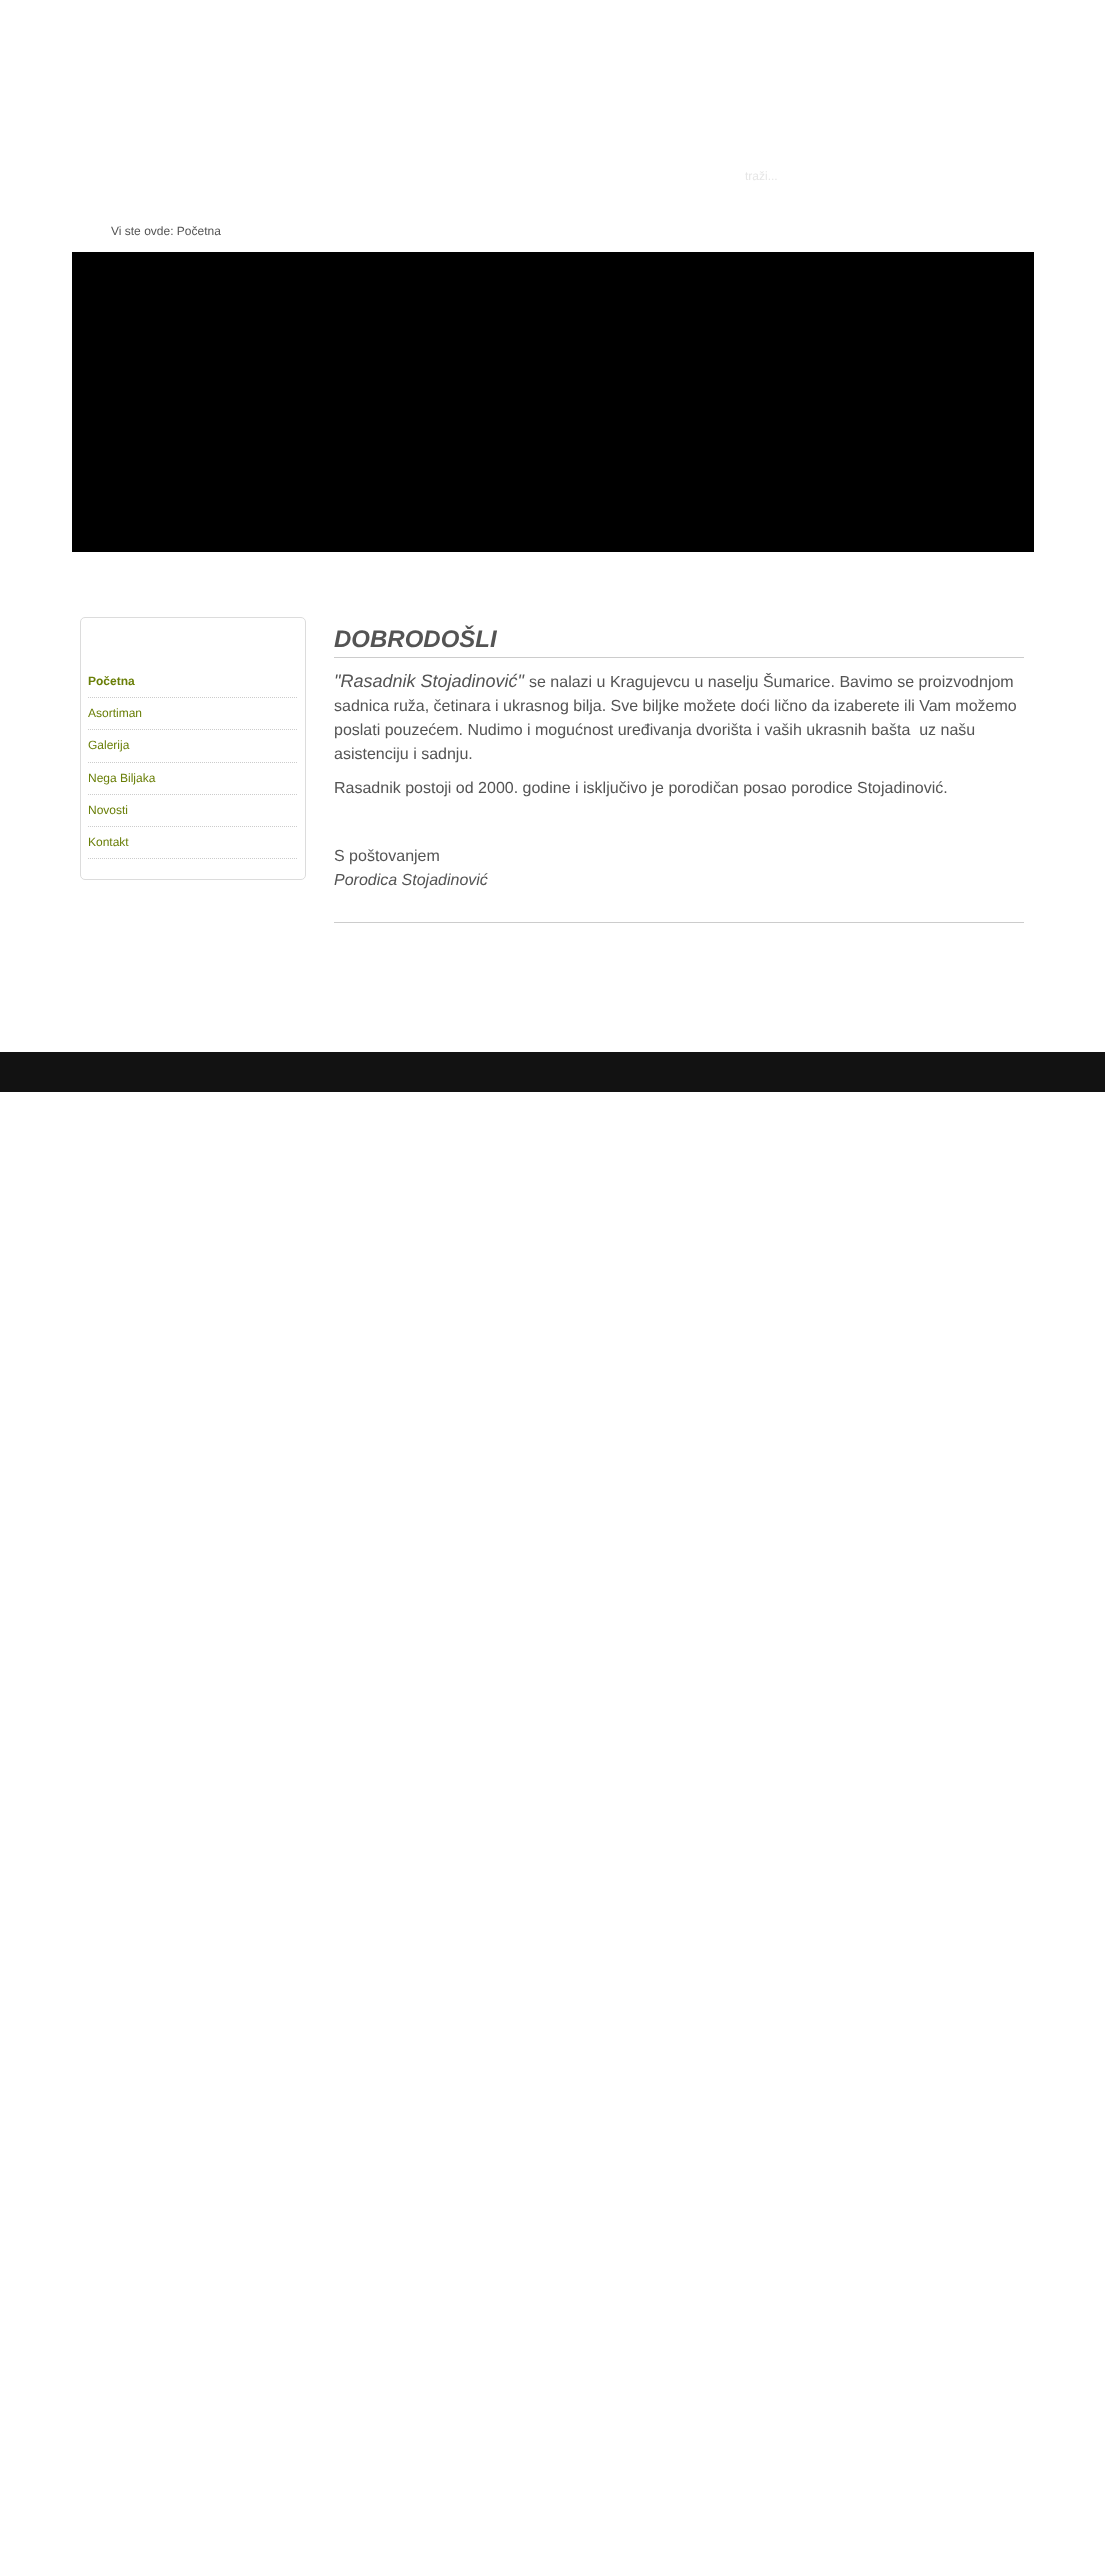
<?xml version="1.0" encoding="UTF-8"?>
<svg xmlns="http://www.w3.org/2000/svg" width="1105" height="2566">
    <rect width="100%" height="100%" fill="#FFFFFF"/>
    <text x="745" y="180" font-family="Liberation Sans" font-size="12" fill="#E6E6E6">traži...</text>
    <text x="111" y="235" font-family="Liberation Sans" font-size="12" fill="#545454">Vi ste ovde: Početna</text>
    <rect x="72" y="252" width="962" height="300" fill="#000000"/>
    <rect x="80.5" y="617.5" width="225" height="262" rx="4.5" fill="none" stroke="#DCDCDC"/>
    <path d="M 88 697.5 H 298" fill="none" stroke="#CCCCCC" stroke-dasharray="1 1"/>
    <text x="88" y="685" font-family="Liberation Sans" font-size="12" font-weight="700" fill="#6A7F08">Početna</text>
    <path d="M 88 729.5 H 298" fill="none" stroke="#CCCCCC" stroke-dasharray="1 1"/>
    <text x="88" y="717" font-family="Liberation Sans" font-size="12" fill="#6A7F08">Asortiman</text>
    <path d="M 88 762.5 H 298" fill="none" stroke="#CCCCCC" stroke-dasharray="1 1"/>
    <text x="88" y="749" font-family="Liberation Sans" font-size="12" fill="#6A7F08">Galerija</text>
    <path d="M 88 794.5 H 298" fill="none" stroke="#CCCCCC" stroke-dasharray="1 1"/>
    <text x="88" y="782" font-family="Liberation Sans" font-size="12" fill="#6A7F08">Nega Biljaka</text>
    <path d="M 88 826.5 H 298" fill="none" stroke="#CCCCCC" stroke-dasharray="1 1"/>
    <text x="88" y="814" font-family="Liberation Sans" font-size="12" fill="#6A7F08">Novosti</text>
    <path d="M 88 858.5 H 298" fill="none" stroke="#CCCCCC" stroke-dasharray="1 1"/>
    <text x="88" y="846" font-family="Liberation Sans" font-size="12" fill="#6A7F08">Kontakt</text>
    <text x="334" y="647" font-family="Liberation Sans" font-size="24" font-weight="700" font-style="italic" fill="#545454">DOBRODOŠLI</text>
    <rect x="334" y="657" width="690" height="1" fill="#CCCCCC"/>
    <text x="334" y="687" font-family="Liberation Sans" font-size="18" font-style="italic" fill="#545454">"Rasadnik Stojadinović"</text>
    <text x="529" y="687" font-family="Liberation Sans" font-size="16" fill="#545454">se nalazi u Kragujevcu u naselju Šumarice. Bavimo se proizvodnjom</text>
    <text font-family="Liberation Sans" font-size="16" fill="#545454" xml:space="preserve"><tspan x="334" y="711">sadnica ruža, četinara i ukrasnog bilja. Sve biljke možete doći lično da izaberete ili Vam možemo</tspan><tspan x="334" y="735">poslati pouzećem. Nudimo i mogućnost uređivanja dvorišta i vaših ukrasnih bašta  uz našu</tspan><tspan x="334" y="759">asistenciju i sadnju.</tspan></text>
    <text x="334" y="793" font-family="Liberation Sans" font-size="16" fill="#545454">Rasadnik postoji od 2000. godine i isključivo je porodičan posao porodice Stojadinović.</text>
    <text x="334" y="861" font-family="Liberation Sans" font-size="16" fill="#545454">S poštovanjem</text>
    <text x="334" y="885" font-family="Liberation Sans" font-size="16" font-style="italic" fill="#545454">Porodica Stojadinović</text>
    <rect x="334" y="922" width="690" height="1" fill="#CCCCCC"/>
    <rect x="0" y="1052" width="1105" height="40" fill="#121212"/>
</svg>
